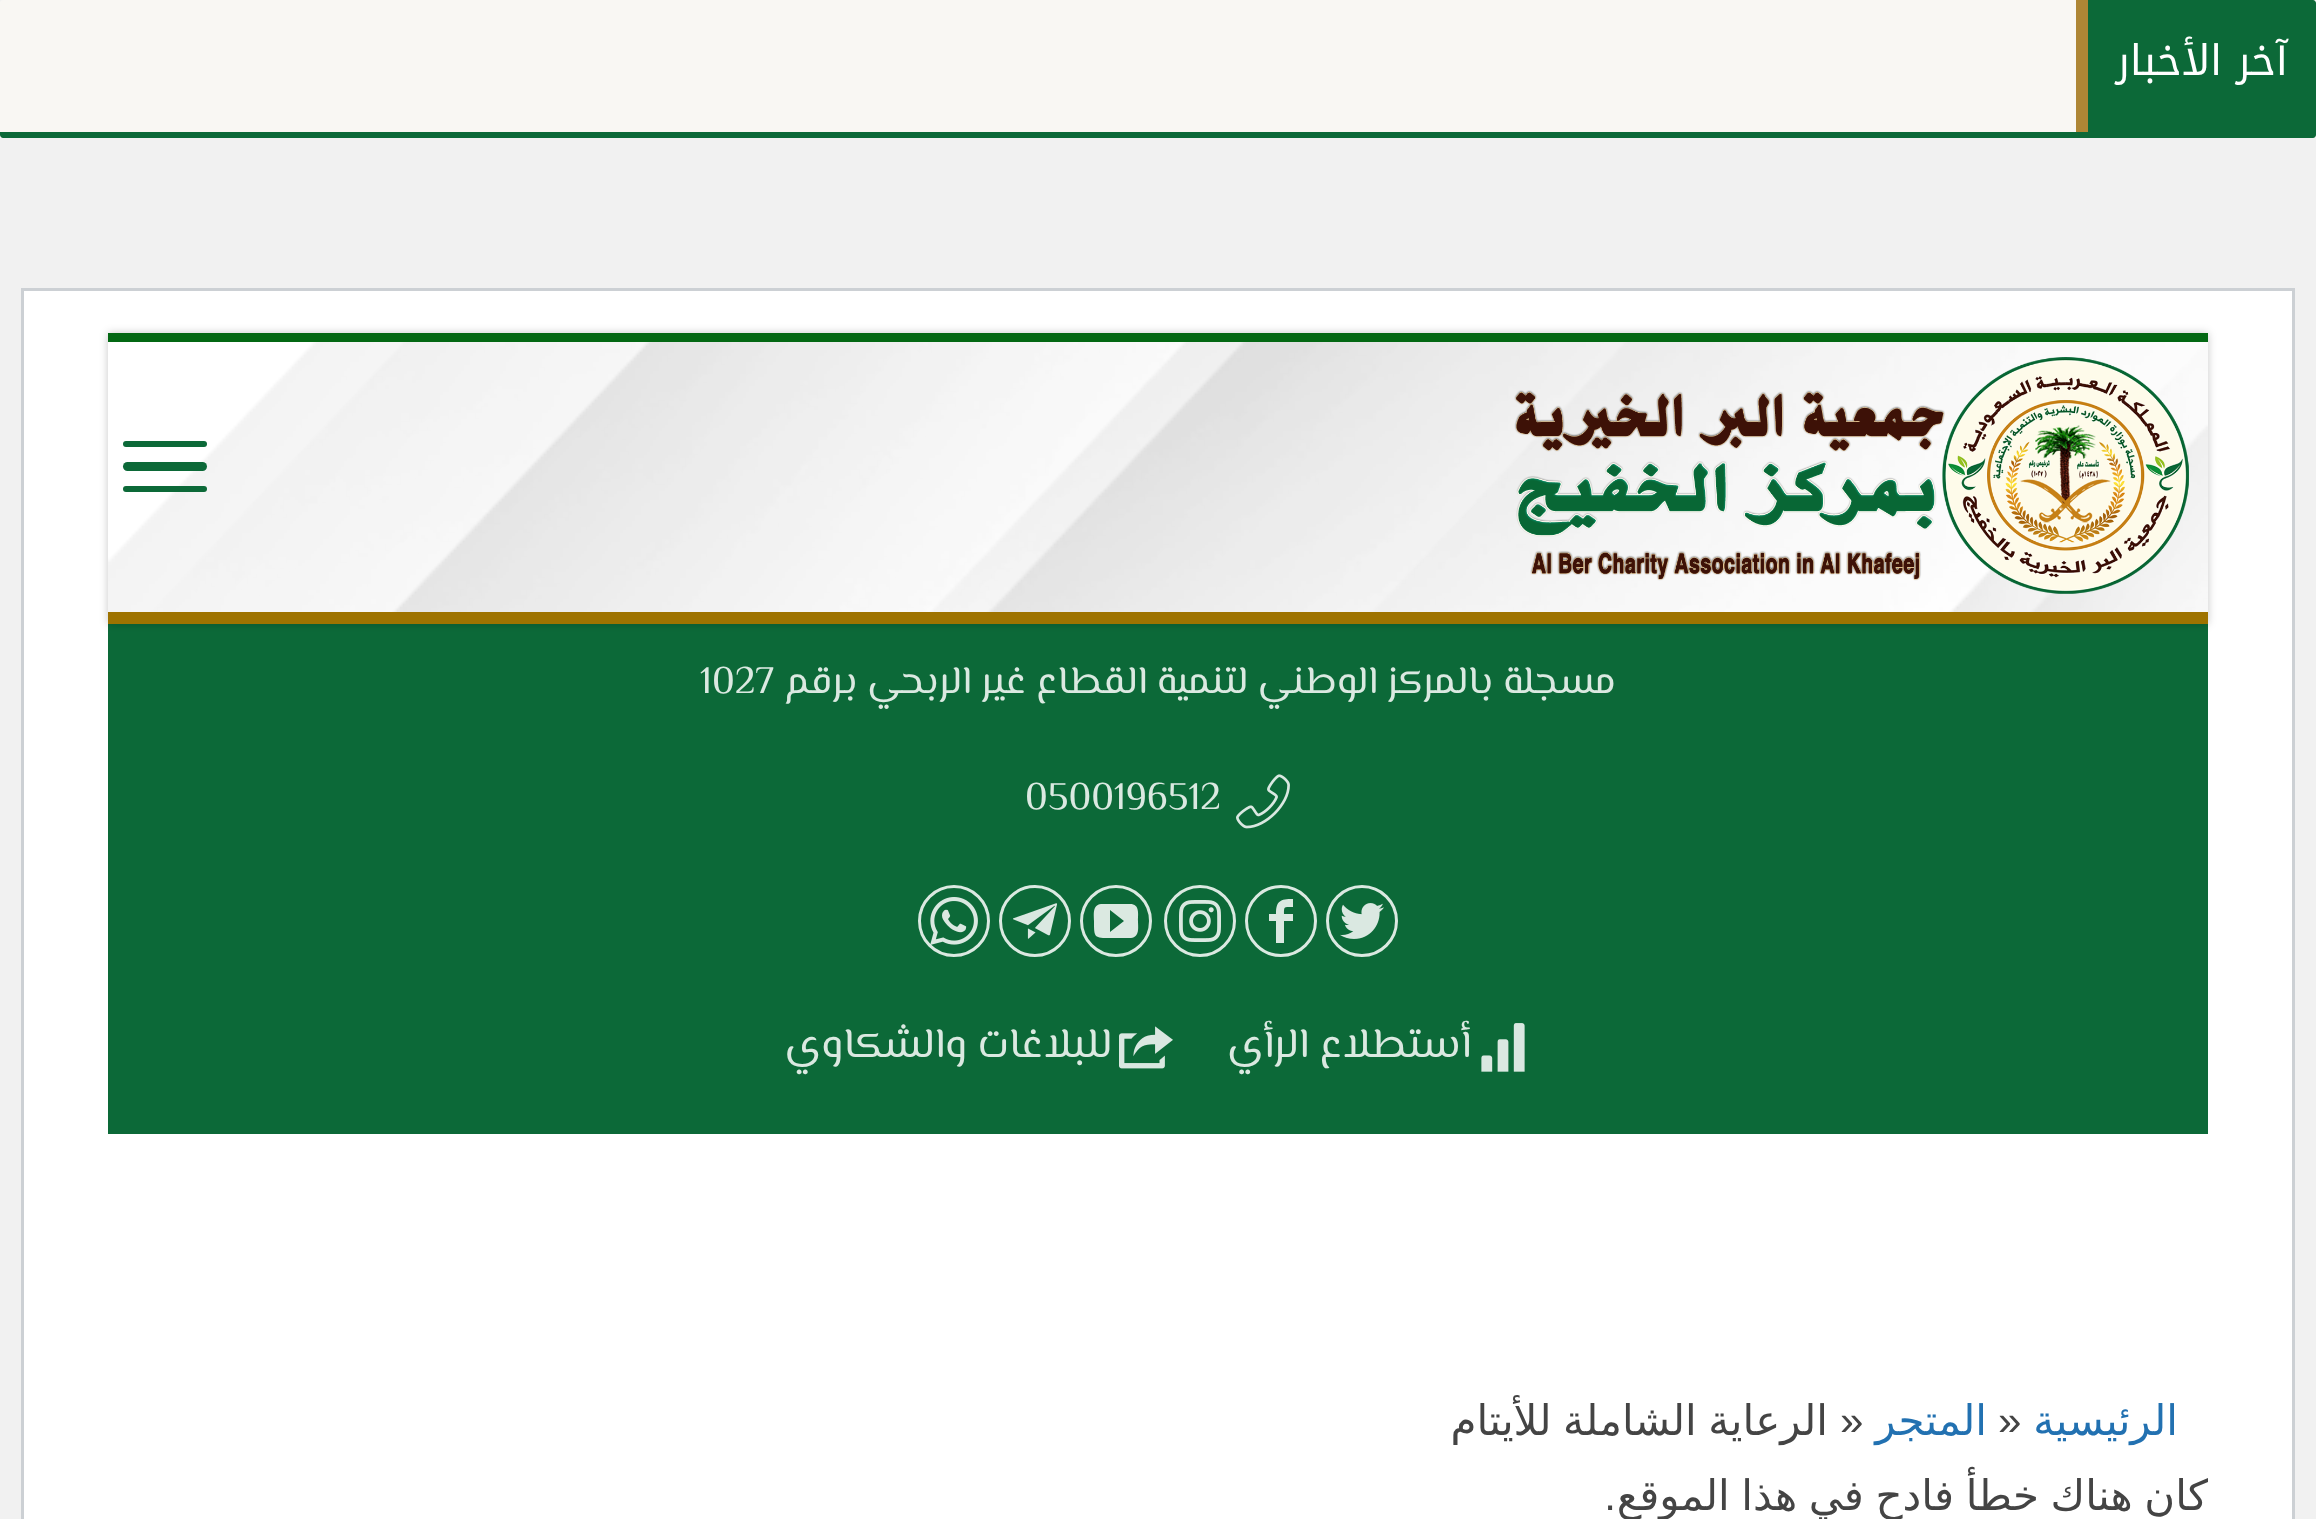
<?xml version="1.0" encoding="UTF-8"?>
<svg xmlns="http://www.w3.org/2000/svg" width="2316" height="1519">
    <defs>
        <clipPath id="clip1"><path d="M 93 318 H 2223 V 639 H 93 Z M 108 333 H 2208 V 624 H 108 Z" clip-rule="evenodd"/></clipPath>
        <filter id="blur1" x="-50%" y="-200%" width="200%" height="500%"><feGaussianBlur stdDeviation="4.5"/></filter>
    </defs>
    <rect width="100%" height="100%" fill="#F1F1F1"/>
    <rect x="22.5" y="289.5" width="2271" height="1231" fill="#FFFFFF" stroke="#CCD0D4" stroke-width="3"/>
    <rect x="0" y="0" width="2316" height="138" rx="3" fill="#F9F7F3"/>
    <path d="M 2088 0 H 2313 C 2314.5 0 2316 1.5 2316 3 V 132 H 2088 Z" fill="#0C6938"/>
    <rect x="2076" y="0" width="12" height="132" fill="#AE8635"/>
    <text x="2288" y="75" font-family="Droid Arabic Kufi" font-size="42" direction="rtl" fill="#FFFFFF">آخر الأخبار</text>
    <path d="M 0 132 H 2316 V 135 C 2316 136.5 2314.5 138 2313 138 H 3 C 1.5 138 0 136.5 0 135 Z" fill="#0C6938"/>
    <rect x="108" y="624" width="2100" height="510" fill="#0C6938"/>
    <g clip-path="url(#clip1)">
        <rect x="108" y="333" width="2100" height="291" fill="#000000" fill-opacity="0.22" filter="url(#blur1)"/>
    </g>
    <image x="108" y="342" width="2100" height="270" href="img_01.png"/>
    <rect x="108" y="333" width="2100" height="9" fill="#036813"/>
    <rect x="108" y="612" width="2100" height="12" fill="#9E7300"/>
    <image x="1514" y="357" width="675" height="237" href="img_02.png"/>
    <rect x="123" y="486" width="84" height="6" rx="3" fill="#0C6938"/>
    <rect x="123" y="441" width="84" height="6" rx="3" fill="#0C6938"/>
    <rect x="123" y="462" width="84" height="9" rx="4.5" fill="#0C6938"/>
    <text x="1616" y="693" font-family="El Messiri" font-size="39" direction="rtl" fill="#DBE9E1">مسجلة بالمركز الوطني لتنمية القطاع غير الربحي برقم</text>
    <text x="700" y="693" font-family="El Messiri" font-size="39" fill="#DBE9E1">1027</text>
    <image x="1236" y="774" width="54" height="55" href="img_03.png"/>
    <text x="1025" y="809" font-family="El Messiri" font-size="39" fill="#DBE9E1">0500196512</text>
    <circle cx="1362" cy="921" r="34.5" fill="none" stroke="#DBE9E1" stroke-width="3"/>
    <image x="1340" y="903" width="44" height="36" href="img_04.png"/>
    <circle cx="1281" cy="921" r="34.5" fill="none" stroke="#DBE9E1" stroke-width="3"/>
    <path d="M 1293 907 C 1284 907 1284 906 1284 914 H 1293 V 921 H 1284 V 943 H 1276 V 921 H 1269 V 914 H 1276 C 1276 901 1280 899 1293 899 Z" fill="#DBE9E1"/>
    <circle cx="1200" cy="921" r="34.5" fill="none" stroke="#DBE9E1" stroke-width="3"/>
    <image x="1179" y="900" width="42" height="42" href="img_05.png"/>
    <circle cx="1116" cy="921" r="34.5" fill="none" stroke="#DBE9E1" stroke-width="3"/>
    <path d="M 1130 904 H 1101 C 1092 905 1094 915 1094 921 C 1094 938 1094 938 1111 938 H 1131 C 1140 937 1138 927 1138 921 C 1138 914 1140 904 1130 904 Z M 1110 932 V 910 L 1124 921 Z" fill="#DBE9E1"/>
    <circle cx="1035" cy="921" r="34.5" fill="none" stroke="#DBE9E1" stroke-width="3"/>
    <image x="1013" y="903" width="44" height="36" href="img_06.png"/>
    <circle cx="954" cy="921" r="34.5" fill="none" stroke="#DBE9E1" stroke-width="3"/>
    <image x="930" y="897" width="48" height="48" href="img_07.png"/>
    <image x="1481" y="1023" width="44" height="49" href="img_08.png"/>
    <text x="1471" y="1057" font-family="El Messiri" font-size="42" direction="rtl" fill="#DBE9E1">أستطلاع الرأي</text>
    <image x="1119" y="1026" width="54" height="43" href="img_09.png"/>
    <text x="1112" y="1057" font-family="El Messiri" font-size="42" direction="rtl" fill="#DBE9E1">للبلاغات والشكاوي</text>
    <text x="2178" y="1435" font-family="DejaVu Sans" font-size="42" direction="rtl" fill="#2271B1">الرئيسية</text>
    <text x="1998" y="1435" font-family="Liberation Sans" font-size="42" fill="#444444">»</text>
    <text x="1987" y="1435" font-family="DejaVu Sans" font-size="42" direction="rtl" fill="#2271B1">المتجر</text>
    <text x="1840" y="1435" font-family="Liberation Sans" font-size="42" fill="#444444">»</text>
    <text x="1828" y="1435" word-spacing="-1.75" font-family="DejaVu Sans" font-size="42" direction="rtl" fill="#444444">الرعاية الشاملة للأيتام</text>
    <text x="2208" y="1510" word-spacing="-1.75" font-family="DejaVu Sans" font-size="42" direction="rtl" fill="#444444">كان هناك خطأ فادح في هذا الموقع</text>
    <text x="1616" y="1510" font-family="Liberation Sans" font-size="42" direction="rtl" fill="#444444">.</text>
</svg>
